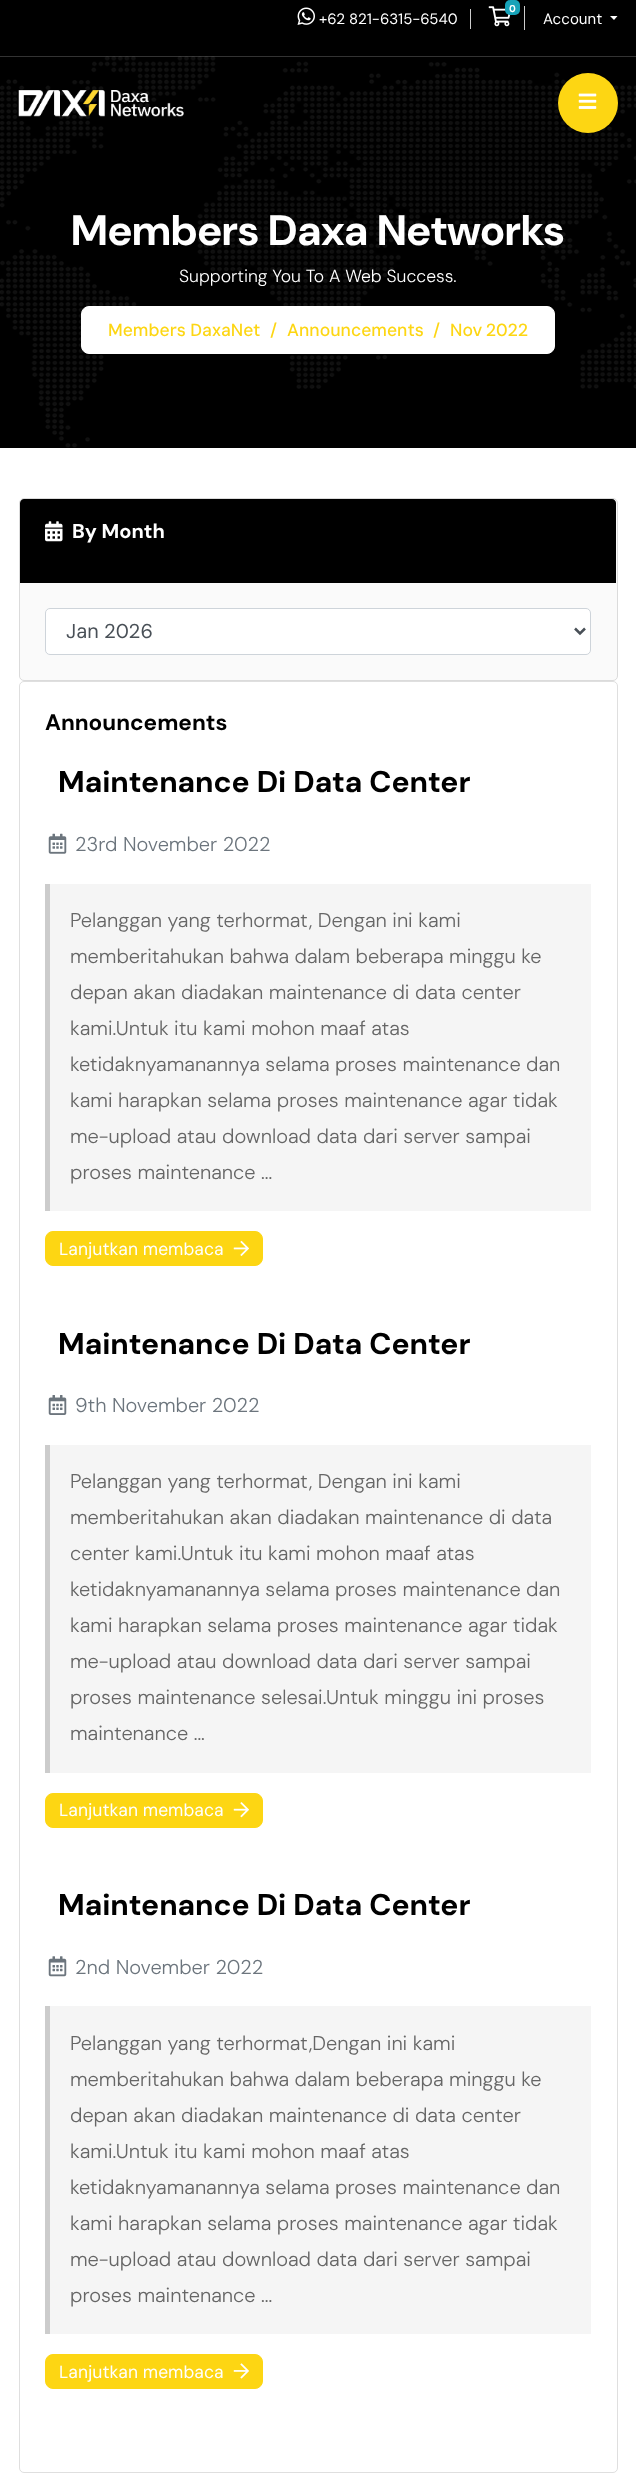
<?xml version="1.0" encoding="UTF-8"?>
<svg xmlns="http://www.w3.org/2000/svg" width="636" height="2486">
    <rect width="100%" height="100%" fill="#FFFFFF"/>
    <rect x="0" y="0" width="636" height="448" fill="#000000"/>
    <rect x="524" y="6" width="1" height="24" fill="#CCCCCC"/>
    <image x="488" y="6" width="23" height="21" href="img_01.png"/>
    <rect x="505" y="0" width="15" height="15" rx="5" fill="#17A2B8"/>
    <text x="509" y="12" font-family="DM Sans" font-size="10" font-weight="700" fill="#FFFFFF">0</text>
    <rect x="470" y="9" width="1" height="20" fill="#CCCCCC"/>
    <image x="297" y="7" width="18" height="18" href="img_02.png"/>
    <text x="319" y="24" font-family="DM Sans" font-size="15" fill="#FFFFFF">+62 821-6315-6540</text>
    <text x="543" y="24" font-family="DM Sans" font-size="15" fill="#FFFFFF">Account</text>
    <path d="M 610 16 H 617.5 L 614 20 Z" fill="#FFFFFF"/>
    <image x="0" y="56" width="636" height="392" href="img_05.png"/>
    <rect x="0" y="56" width="636" height="1" fill="#FFFFFF" fill-opacity="0.2"/>
    <image x="18" y="90" width="166" height="27" href="img_03.png"/>
    <circle cx="588" cy="103" r="30" fill="#FDD613"/>
    <image x="578" y="93" width="19" height="16" href="img_04.png"/>
    <text x="71" y="245" font-family="'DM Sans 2'" font-size="42.5" font-weight="700" fill="#FFFFFF">Members Daxa Networks</text>
    <text x="179" y="282" font-family="DM Sans" font-size="17.5" font-weight="300" fill="#FFFFFF">Supporting You To A Web Success.</text>
    <rect x="81.5" y="306.5" width="473" height="47" rx="7.5" fill="#FFFFFF" stroke="#FFFFFF"/>
    <text x="108" y="336" font-family="DM Sans" font-size="17.5" font-weight="500" fill="#FDD613">Members DaxaNet</text>
    <text x="270" y="336" font-family="DM Sans" font-size="17.5" font-weight="500" fill="#FDD613">/</text>
    <text x="287" y="336" font-family="DM Sans" font-size="17.5" font-weight="500" fill="#FDD613">Announcements</text>
    <text x="433" y="336" font-family="DM Sans" font-size="17.5" font-weight="500" fill="#FDD613">/</text>
    <text x="450" y="336" word-spacing="-1" font-family="DM Sans" font-size="17.5" font-weight="500" fill="#FDD613">Nov 2022</text>
    <rect x="19.5" y="498.5" width="598" height="182" rx="4.5" fill="#FAFAFA" stroke="#DBDBDB"/>
    <path d="M 24 499 H 612 C 614 499 616 501 616 503 V 583 H 20 V 503 C 20 501 22 499 24 499 Z" fill="#000000"/>
    <image x="45" y="521" width="18" height="21" href="img_06.png"/>
    <text x="72" y="538" font-family="'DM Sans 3'" font-size="20" font-weight="700" fill="#FFFFFF">By Month</text>
    <rect x="45.5" y="608.5" width="545" height="46" rx="4.5" fill="#FFFFFF" stroke="#CED4DA"/>
    <path d="M 575 628.5 L 580 633.5 L 585 628.5" fill="none" stroke="#495057" stroke-width="2.5"/>
    <text x="66" y="638" font-family="DM Sans" font-size="20" fill="#495057">Jan 2026</text>
    <rect x="19.5" y="681.5" width="598" height="1791" rx="4.5" fill="none" stroke="#DFDFDF"/>
    <text x="45" y="730" font-family="'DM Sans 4'" font-size="22.5" font-weight="700" fill="#000000">Announcements</text>
    <text x="58" y="792" font-family="'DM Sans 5'" font-size="30" font-weight="700" fill="#000000">Maintenance Di Data Center</text>
    <image x="48" y="833" width="19" height="21" href="img_07.png"/>
    <text x="75" y="851" font-family="'DM Sans 2'" font-size="20" font-weight="300" fill="#6C757D">23rd November 2022</text>
    <rect x="50" y="884" width="541" height="327" fill="#F5F5F5"/>
    <rect x="45" y="884" width="5" height="327" fill="#CCCCCC"/>
    <text font-family="'DM Sans 2'" font-size="20" font-weight="300" fill="#666666">
        <tspan x="70" y="927">Pelanggan yang terhormat, Dengan ini kami</tspan>
        <tspan x="70" y="963">memberitahukan bahwa dalam beberapa minggu ke</tspan>
        <tspan x="70" y="999">depan akan diadakan maintenance di data center</tspan>
        <tspan x="70" y="1035">kami.Untuk itu kami mohon maaf atas</tspan>
        <tspan x="70" y="1071">ketidaknyamanannya selama proses maintenance dan</tspan>
        <tspan x="70" y="1107">kami harapkan selama proses maintenance agar tidak</tspan>
        <tspan x="70" y="1143">me-upload atau download data dari server sampai</tspan>
        <tspan x="70" y="1179">proses maintenance ...</tspan>
    </text>
    <rect x="45.5" y="1231.5" width="217" height="34" rx="7.5" fill="#FDD613" stroke="#FDD613"/>
    <text x="59" y="1255" font-family="DM Sans" font-size="17.5" fill="#FFFFFF">Lanjutkan membaca</text>
    <image x="233" y="1240" width="16" height="16" href="img_08.png"/>
    <text x="58" y="1354" font-family="'DM Sans 5'" font-size="30" font-weight="700" fill="#000000">Maintenance Di Data Center</text>
    <image x="48" y="1395" width="19" height="20" href="img_09.png"/>
    <text x="75" y="1412" font-family="'DM Sans 2'" font-size="20" font-weight="300" fill="#6C757D">9th November 2022</text>
    <rect x="50" y="1445" width="541" height="328" fill="#F5F5F5"/>
    <rect x="45" y="1445" width="5" height="328" fill="#CCCCCC"/>
    <text font-family="'DM Sans 2'" font-size="20" font-weight="300" fill="#666666">
        <tspan x="70" y="1488">Pelanggan yang terhormat, Dengan ini kami</tspan>
        <tspan x="70" y="1524">memberitahukan akan diadakan maintenance di data</tspan>
        <tspan x="70" y="1560">center kami.Untuk itu kami mohon maaf atas</tspan>
        <tspan x="70" y="1596">ketidaknyamanannya selama proses maintenance dan</tspan>
        <tspan x="70" y="1632">kami harapkan selama proses maintenance agar tidak</tspan>
        <tspan x="70" y="1668">me-upload atau download data dari server sampai</tspan>
        <tspan x="70" y="1704">proses maintenance selesai.Untuk minggu ini proses</tspan>
        <tspan x="70" y="1740">maintenance ...</tspan>
    </text>
    <rect x="45.5" y="1793.5" width="217" height="34" rx="7.5" fill="#FDD613" stroke="#FDD613"/>
    <text x="59" y="1816" font-family="DM Sans" font-size="17.5" fill="#FFFFFF">Lanjutkan membaca</text>
    <image x="233" y="1802" width="16" height="16" href="img_10.png"/>
    <text x="58" y="1915" font-family="'DM Sans 5'" font-size="30" font-weight="700" fill="#000000">Maintenance Di Data Center</text>
    <image x="48" y="1956" width="19" height="21" href="img_11.png"/>
    <text x="75" y="1974" font-family="'DM Sans 2'" font-size="20" font-weight="300" fill="#6C757D">2nd November 2022</text>
    <rect x="50" y="2006" width="541" height="328" fill="#F5F5F5"/>
    <rect x="45" y="2006" width="5" height="328" fill="#CCCCCC"/>
    <text font-family="'DM Sans 2'" font-size="20" font-weight="300" fill="#666666">
        <tspan x="70" y="2050">Pelanggan yang terhormat,Dengan ini kami</tspan>
        <tspan x="70" y="2086">memberitahukan bahwa dalam beberapa minggu ke</tspan>
        <tspan x="70" y="2122">depan akan diadakan maintenance di data center</tspan>
        <tspan x="70" y="2158">kami.Untuk itu kami mohon maaf atas</tspan>
        <tspan x="70" y="2194">ketidaknyamanannya selama proses maintenance dan</tspan>
        <tspan x="70" y="2230">kami harapkan selama proses maintenance agar tidak</tspan>
        <tspan x="70" y="2266">me-upload atau download data dari server sampai</tspan>
        <tspan x="70" y="2302">proses maintenance ...</tspan>
    </text>
    <rect x="45.5" y="2354.5" width="217" height="34" rx="7.5" fill="#FDD613" stroke="#FDD613"/>
    <text x="59" y="2378" font-family="DM Sans" font-size="17.5" fill="#FFFFFF">Lanjutkan membaca</text>
    <image x="233" y="2363" width="16" height="16" href="img_12.png"/>
</svg>
